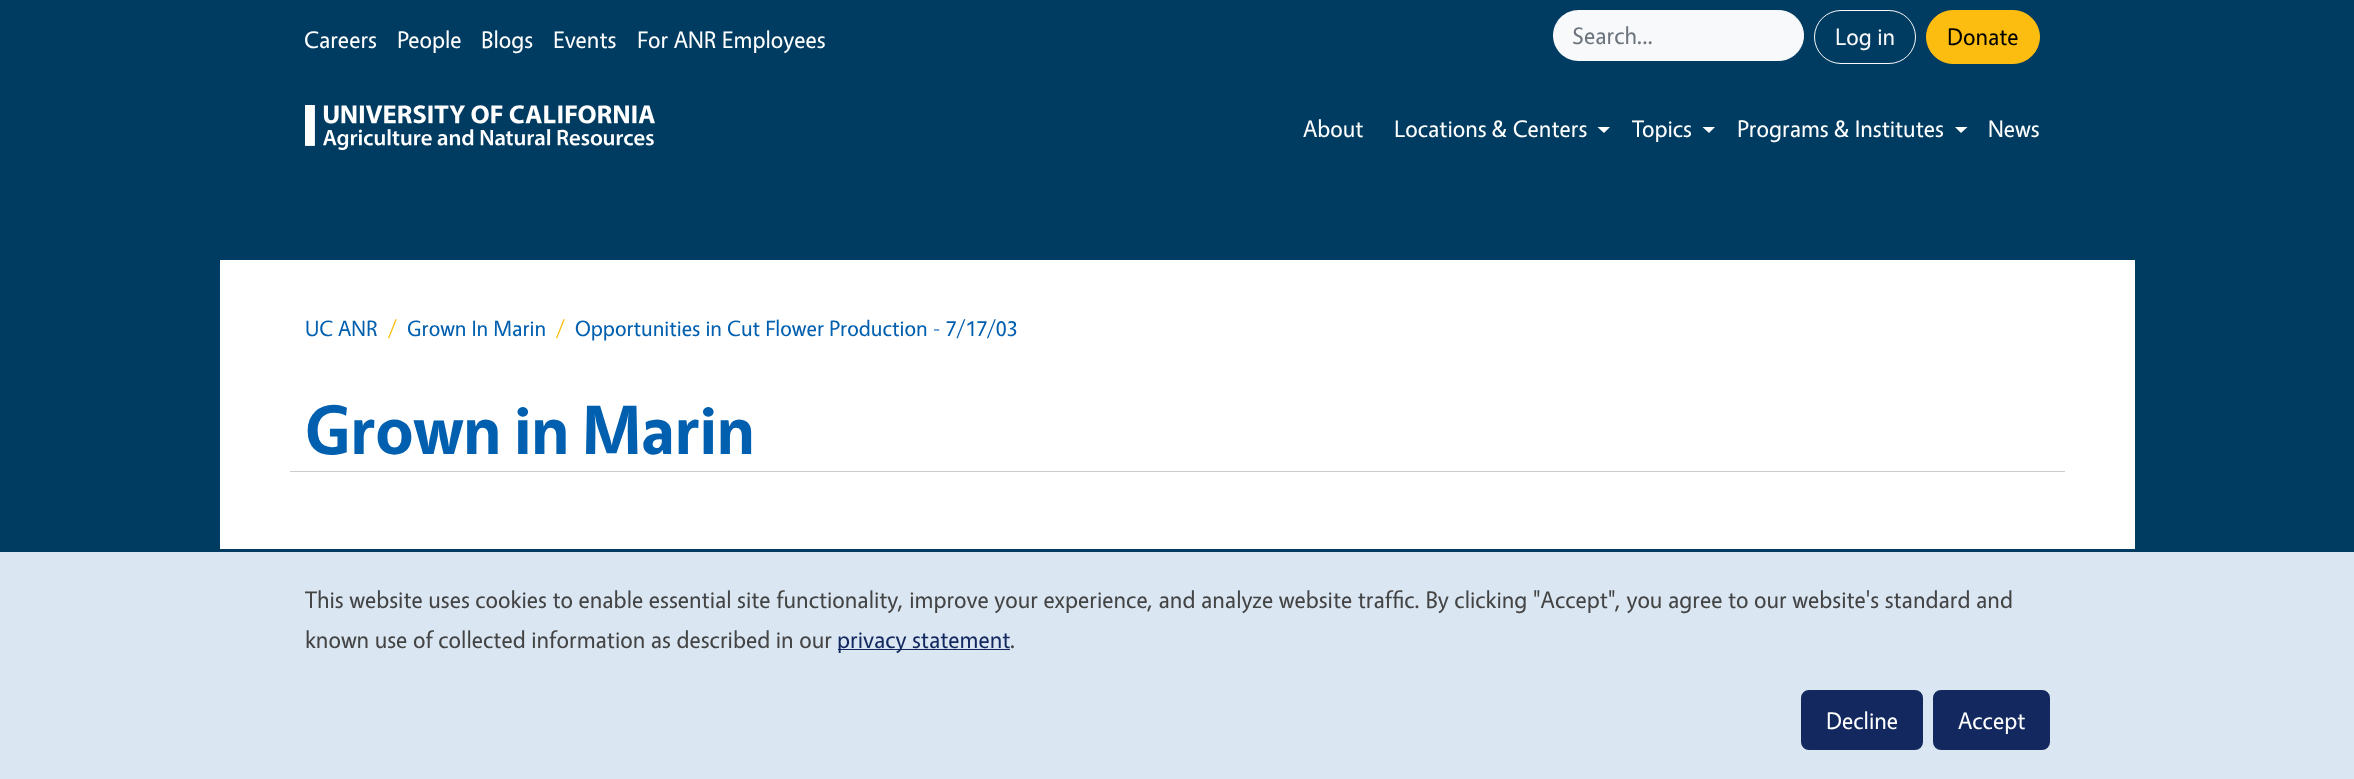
<?xml version="1.0" encoding="UTF-8"?>
<svg xmlns="http://www.w3.org/2000/svg" width="2354" height="779">
    <rect width="100%" height="100%" fill="#003C61"/>
    <text x="304" y="48" font-family="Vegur" font-size="24" fill="#FFFFFF">Careers</text>
    <text x="397" y="48" font-family="Vegur" font-size="24" fill="#FFFFFF">People</text>
    <text x="481" y="48" font-family="Vegur" font-size="24" fill="#FFFFFF">Blogs</text>
    <text x="553" y="48" font-family="Vegur" font-size="24" fill="#FFFFFF">Events</text>
    <text x="637" y="48" font-family="Vegur" font-size="24" fill="#FFFFFF">For ANR Employees</text>
    <path d="M 1578.5 10 H 1773 V 61 H 1578.5 C 1564.5 61 1553 49.5 1553 35.5 C 1553 21.5 1564.5 10 1578.5 10 Z" fill="#F8F9FA"/>
    <text x="1572" y="44" font-family="Vegur" font-size="24" fill="#6C757D">Search...</text>
    <path d="M 1771.5 10.5 H 1778.5 C 1792.5 10.5 1803.5 21.5 1803.5 35.5 C 1803.5 49.5 1792.5 60.5 1778.5 60.5 H 1771.5 Z" fill="#F8F9FA" stroke="#F8F9FA"/>
    <rect x="1814.5" y="10.5" width="101" height="53" rx="26.5" fill="none" stroke="#F8F9FA"/>
    <text x="1835" y="45" font-family="Vegur" font-size="24" fill="#F8F9FA">Log in</text>
    <rect x="1926.5" y="10.5" width="113" height="53" rx="26.5" fill="#FDBD10" stroke="#FDBD10"/>
    <text x="1947" y="45" font-family="Vegur" font-size="24" fill="#000000">Donate</text>
    <image x="305" y="105" width="350" height="45" href="img_01.png"/>
    <text x="1303" y="137" font-family="Vegur" font-size="24" fill="#FFFFFF">About</text>
    <text x="1394" y="137" font-family="Vegur" font-size="24" fill="#FFFFFF">Locations &amp; Centers</text>
    <path d="M 1597.5 127 H 1610 L 1604 133 Z" fill="#FFFFFF"/>
    <text x="1632" y="137" font-family="Vegur" font-size="24" fill="#FFFFFF">Topics</text>
    <path d="M 1702.5 127 H 1715 L 1709 133 Z" fill="#FFFFFF"/>
    <text x="1737" y="137" font-family="Vegur" font-size="24" fill="#FFFFFF">Programs &amp; Institutes</text>
    <path d="M 1955 127 H 1967.5 L 1961 133 Z" fill="#FFFFFF"/>
    <text x="1988" y="137" font-family="Vegur" font-size="24" fill="#FFFFFF">News</text>
    <rect x="220" y="260" width="1915" height="289" fill="#FFFFFF"/>
    <text x="305" y="336" font-family="Vegur" font-size="22.25" fill="#005FAE">UC ANR</text>
    <text x="388" y="336" font-family="Vegur" font-size="22.25" fill="#FDBD10">/</text>
    <text x="407" y="336" font-family="Vegur" font-size="22.25" fill="#005FAE">Grown In Marin</text>
    <text x="556" y="336" font-family="Vegur" font-size="22.25" fill="#FDBD10">/</text>
    <text x="575" y="336" font-family="Vegur" font-size="22.25" fill="#005FAE">Opportunities in Cut Flower Production - 7/17/03</text>
    <rect x="290" y="471" width="1775" height="1" fill="#CCCCCC"/>
    <text x="305" y="454" font-family="Vegur" font-size="70" font-weight="700" fill="#005FAE">Grown in Marin</text>
    <rect x="0" y="552" width="2354" height="227" fill="#DAE7F3"/>
    <text font-family="Vegur" font-size="24" fill="#444444">
        <tspan x="305" y="608">This website uses cookies to enable essential site functionality, improve your experience, and analyze website traffic. By clicking "Accept", you agree to our website's standard and</tspan>
        <tspan x="305" y="648">known use of collected information as described in our</tspan>
    </text>
    <rect x="838" y="649" width="172" height="1" fill="#12285F"/>
    <text x="837" y="648" font-family="Vegur" font-size="24" fill="#12285F">privacy statement</text>
    <text x="1010" y="648" font-family="Vegur" font-size="24" fill="#444444">.</text>
    <rect x="1803" y="692" width="118" height="56" rx="6" fill="#12285F" stroke="#12285F" stroke-width="4"/>
    <text x="1826" y="729" font-family="Vegur" font-size="24" fill="#FFFFFF">Decline</text>
    <rect x="1935" y="692" width="113" height="56" rx="6" fill="#12285F" stroke="#12285F" stroke-width="4"/>
    <text x="1958" y="729" font-family="Vegur" font-size="24" fill="#FFFFFF">Accept</text>
</svg>
